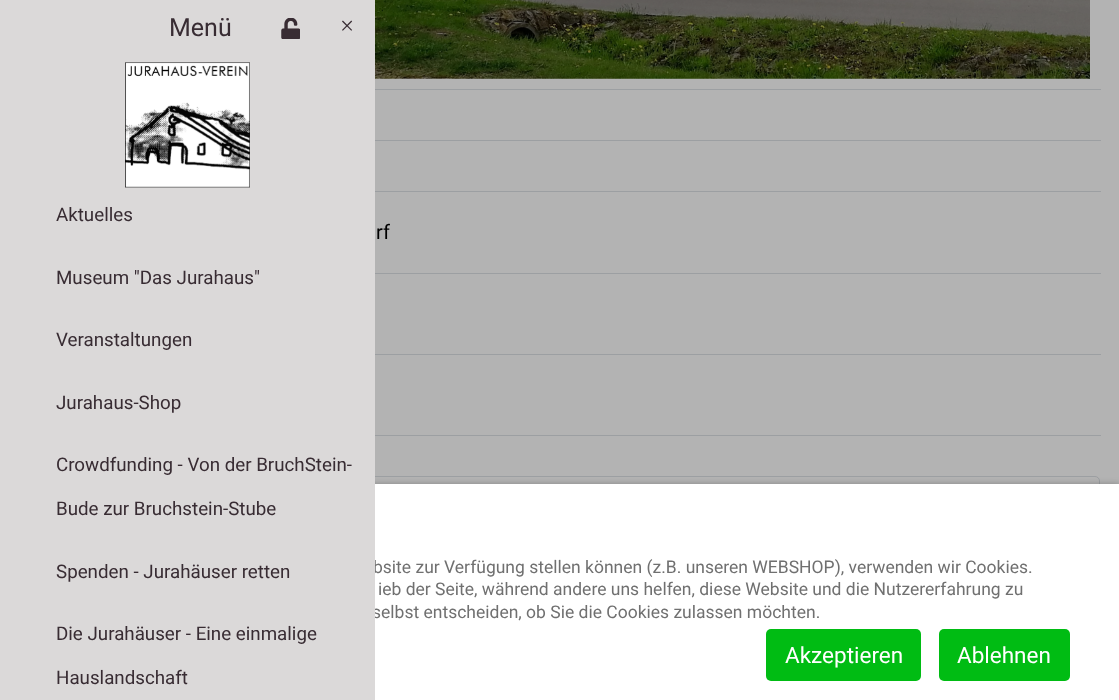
<?xml version="1.0" encoding="UTF-8"?>
<svg xmlns="http://www.w3.org/2000/svg" width="1119" height="700">
    <defs>
        <filter id="blur1" x="-50%" y="-200%" width="200%" height="500%"><feGaussianBlur stdDeviation="3"/></filter>
    </defs>
    <rect width="100%" height="100%" fill="#B3B3B3"/>
    <rect x="20.5" y="476.5" width="1079" height="42" rx="4.5" fill="none" stroke="#9C9FA2"/>
    <rect x="0" y="484" width="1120" height="216" fill="#000000" fill-opacity="0.25" filter="url(#blur1)"/>
    <rect x="375" y="484" width="744" height="216" fill="#FFFFFF"/>
    <text x="373" y="573" font-family="Roboto" font-size="17.5" fill="#707070">bsite zur Verfügung stellen können (z.B. unseren WEBSHOP), verwenden wir Cookies.</text>
    <text x="372" y="618" font-family="Roboto" font-size="17.5" fill="#707070">selbst entscheiden, ob Sie die Cookies zulassen möchten.</text>
    <rect x="0" y="0" width="375" height="700" fill="#DBD9D9"/>
    <text x="169" y="36" font-family="Roboto" font-size="25" fill="#382C33">Menü</text>
    <image x="281" y="18" width="19" height="21" href="img_01.png"/>
    <text x="340" y="34" font-family="Liberation Serif" font-size="25" fill="#382C33">×</text>
    <image x="125" y="62" width="125" height="126" href="img_02.png"/>
    <text x="56" y="221" font-family="Roboto" font-size="18.75" fill="#382C33">Aktuelles</text>
    <text x="56" y="284" font-family="Roboto" font-size="18.75" fill="#382C33">Museum "Das Jurahaus"</text>
    <text x="56" y="346" font-family="Roboto" font-size="18.75" fill="#382C33">Veranstaltungen</text>
    <text x="56" y="409" font-family="Roboto" font-size="18.75" fill="#382C33">Jurahaus-Shop</text>
    <text x="56" y="471" font-family="Roboto" font-size="18.75" fill="#382C33">Crowdfunding - Von der BruchStein-</text>
    <text x="56" y="515" font-family="Roboto" font-size="18.75" fill="#382C33">Bude zur Bruchstein-Stube</text>
    <text x="56" y="578" font-family="Roboto" font-size="18.75" fill="#382C33">Spenden - Jurahäuser retten</text>
    <text x="56" y="640" font-family="Roboto" font-size="18.75" fill="#382C33">Die Jurahäuser - Eine einmalige</text>
    <text x="56" y="684" font-family="Roboto" font-size="18.75" fill="#382C33">Hauslandschaft</text>
    <rect x="375" y="89" width="726" height="1" fill="#9C9FA2"/>
    <image x="375" y="0" width="715" height="79" href="img_03.png"/>
    <rect x="375" y="140" width="726" height="1" fill="#9C9FA2"/>
    <rect x="375" y="191" width="726" height="1" fill="#9C9FA2"/>
    <rect x="375" y="273" width="726" height="1" fill="#9C9FA2"/>
    <text x="376" y="239" font-family="Roboto" font-size="20" fill="#000000">rf</text>
    <rect x="375" y="354" width="726" height="1" fill="#9C9FA2"/>
    <rect x="375" y="435" width="726" height="1" fill="#9C9FA2"/>
    <text x="378" y="595" font-family="Roboto" font-size="17.5" fill="#707070">ieb der Seite, während andere uns helfen, diese Website und die Nutzererfahrung zu</text>
    <rect x="766" y="629" width="155" height="52" rx="5" fill="#00BC13"/>
    <text x="785" y="663" font-family="Roboto" font-size="22.5" fill="#FFFFFF">Akzeptieren</text>
    <rect x="939" y="629" width="131" height="52" rx="5" fill="#00BC13"/>
    <text x="957" y="663" font-family="Roboto" font-size="22.5" fill="#FFFFFF">Ablehnen</text>
</svg>
